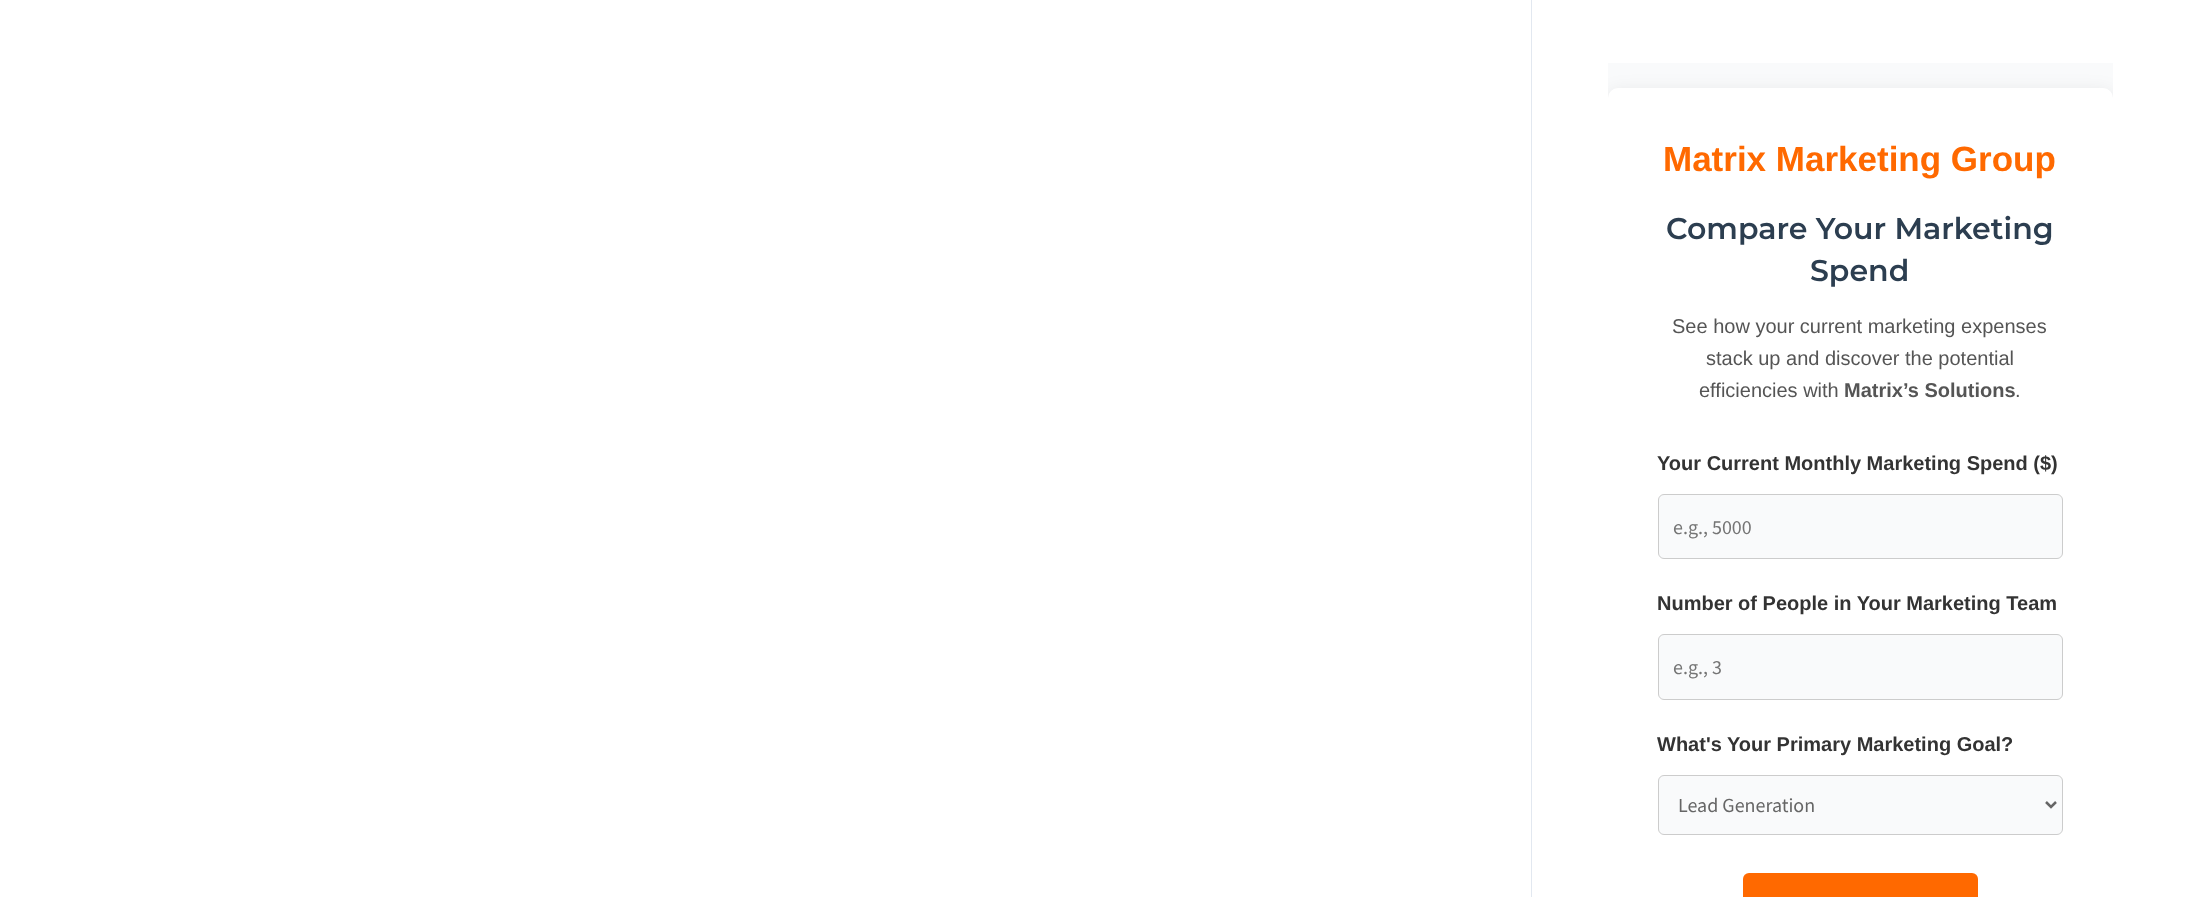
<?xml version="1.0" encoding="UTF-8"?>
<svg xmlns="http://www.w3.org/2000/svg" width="2188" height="897">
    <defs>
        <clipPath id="clip1"><rect x="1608" y="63" width="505" height="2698"/></clipPath>
        <filter id="blur1" x="-50%" y="-200%" width="200%" height="500%"><feGaussianBlur stdDeviation="9.5"/></filter>
    </defs>
    <rect width="100%" height="100%" fill="#FFFFFF"/>
    <rect x="1531" y="0" width="1" height="897" fill="#E2E8F0"/>
    <rect x="1608" y="63" width="505" height="35" fill="#F9FAFB"/>
    <g clip-path="url(#clip1)">
        <rect x="1608" y="93" width="505" height="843" rx="10" fill="#000000" fill-opacity="0.1" filter="url(#blur1)"/>
    </g>
    <rect x="1608" y="88" width="505" height="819" rx="10" fill="#FFFFFF"/>
    <text x="1663" y="171" font-family="Liberation Sans" font-size="35" font-weight="700" fill="#FF6900">Matrix Marketing Group</text>
    <text x="1666" y="239" font-family="Montserrat" font-size="30" font-weight="600" fill="#2C3E50">Compare Your Marketing</text>
    <text x="1810" y="281" font-family="Montserrat" font-size="30" font-weight="600" fill="#2C3E50">Spend</text>
    <text x="1672" y="333" font-family="Liberation Sans" font-size="20" fill="#555555">See how your current marketing expenses</text>
    <text x="1706" y="365" font-family="Liberation Sans" font-size="20" fill="#555555">stack up and discover the potential</text>
    <text x="1699" y="397" font-family="Liberation Sans" font-size="20" fill="#555555">efficiencies with</text>
    <text x="1844" y="397" font-family="Liberation Sans" font-size="20" font-weight="700" fill="#555555">Matrix’s Solutions</text>
    <text x="2015" y="397" font-family="Liberation Sans" font-size="20" fill="#555555">.</text>
    <text x="1657" y="470" font-family="Liberation Sans" font-size="20" font-weight="700" fill="#333333">Your Current Monthly Marketing Spend ($)</text>
    <rect x="1658.5" y="494.5" width="404" height="64" rx="5.5" fill="#F9FAFB" stroke="#CCCCCC"/>
    <text x="1673" y="534" font-family="Source Sans Pro" font-size="20" fill="#757575">e.g., 5000</text>
    <text x="1657" y="610" font-family="Liberation Sans" font-size="20" font-weight="700" fill="#333333">Number of People in Your Marketing Team</text>
    <rect x="1658.5" y="634.5" width="404" height="65" rx="5.5" fill="#F9FAFB" stroke="#CCCCCC"/>
    <text x="1673" y="674" font-family="Source Sans Pro" font-size="20" fill="#757575">e.g., 3</text>
    <text x="1657" y="751" font-family="Liberation Sans" font-size="20" font-weight="700" fill="#333333">What's Your Primary Marketing Goal?</text>
    <rect x="1658.5" y="775.5" width="404" height="59" rx="5.5" fill="#F9FAFB" stroke="#CCCCCC"/>
    <path d="M 2046 802 L 2051 807 L 2056 802" fill="none" stroke="#666666" stroke-width="2.5"/>
    <text x="1678" y="812" font-family="Source Sans Pro" font-size="20" fill="#666666">Lead Generation</text>
    <rect x="1743" y="873" width="235" height="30" rx="6" fill="#FF6900"/>
</svg>
